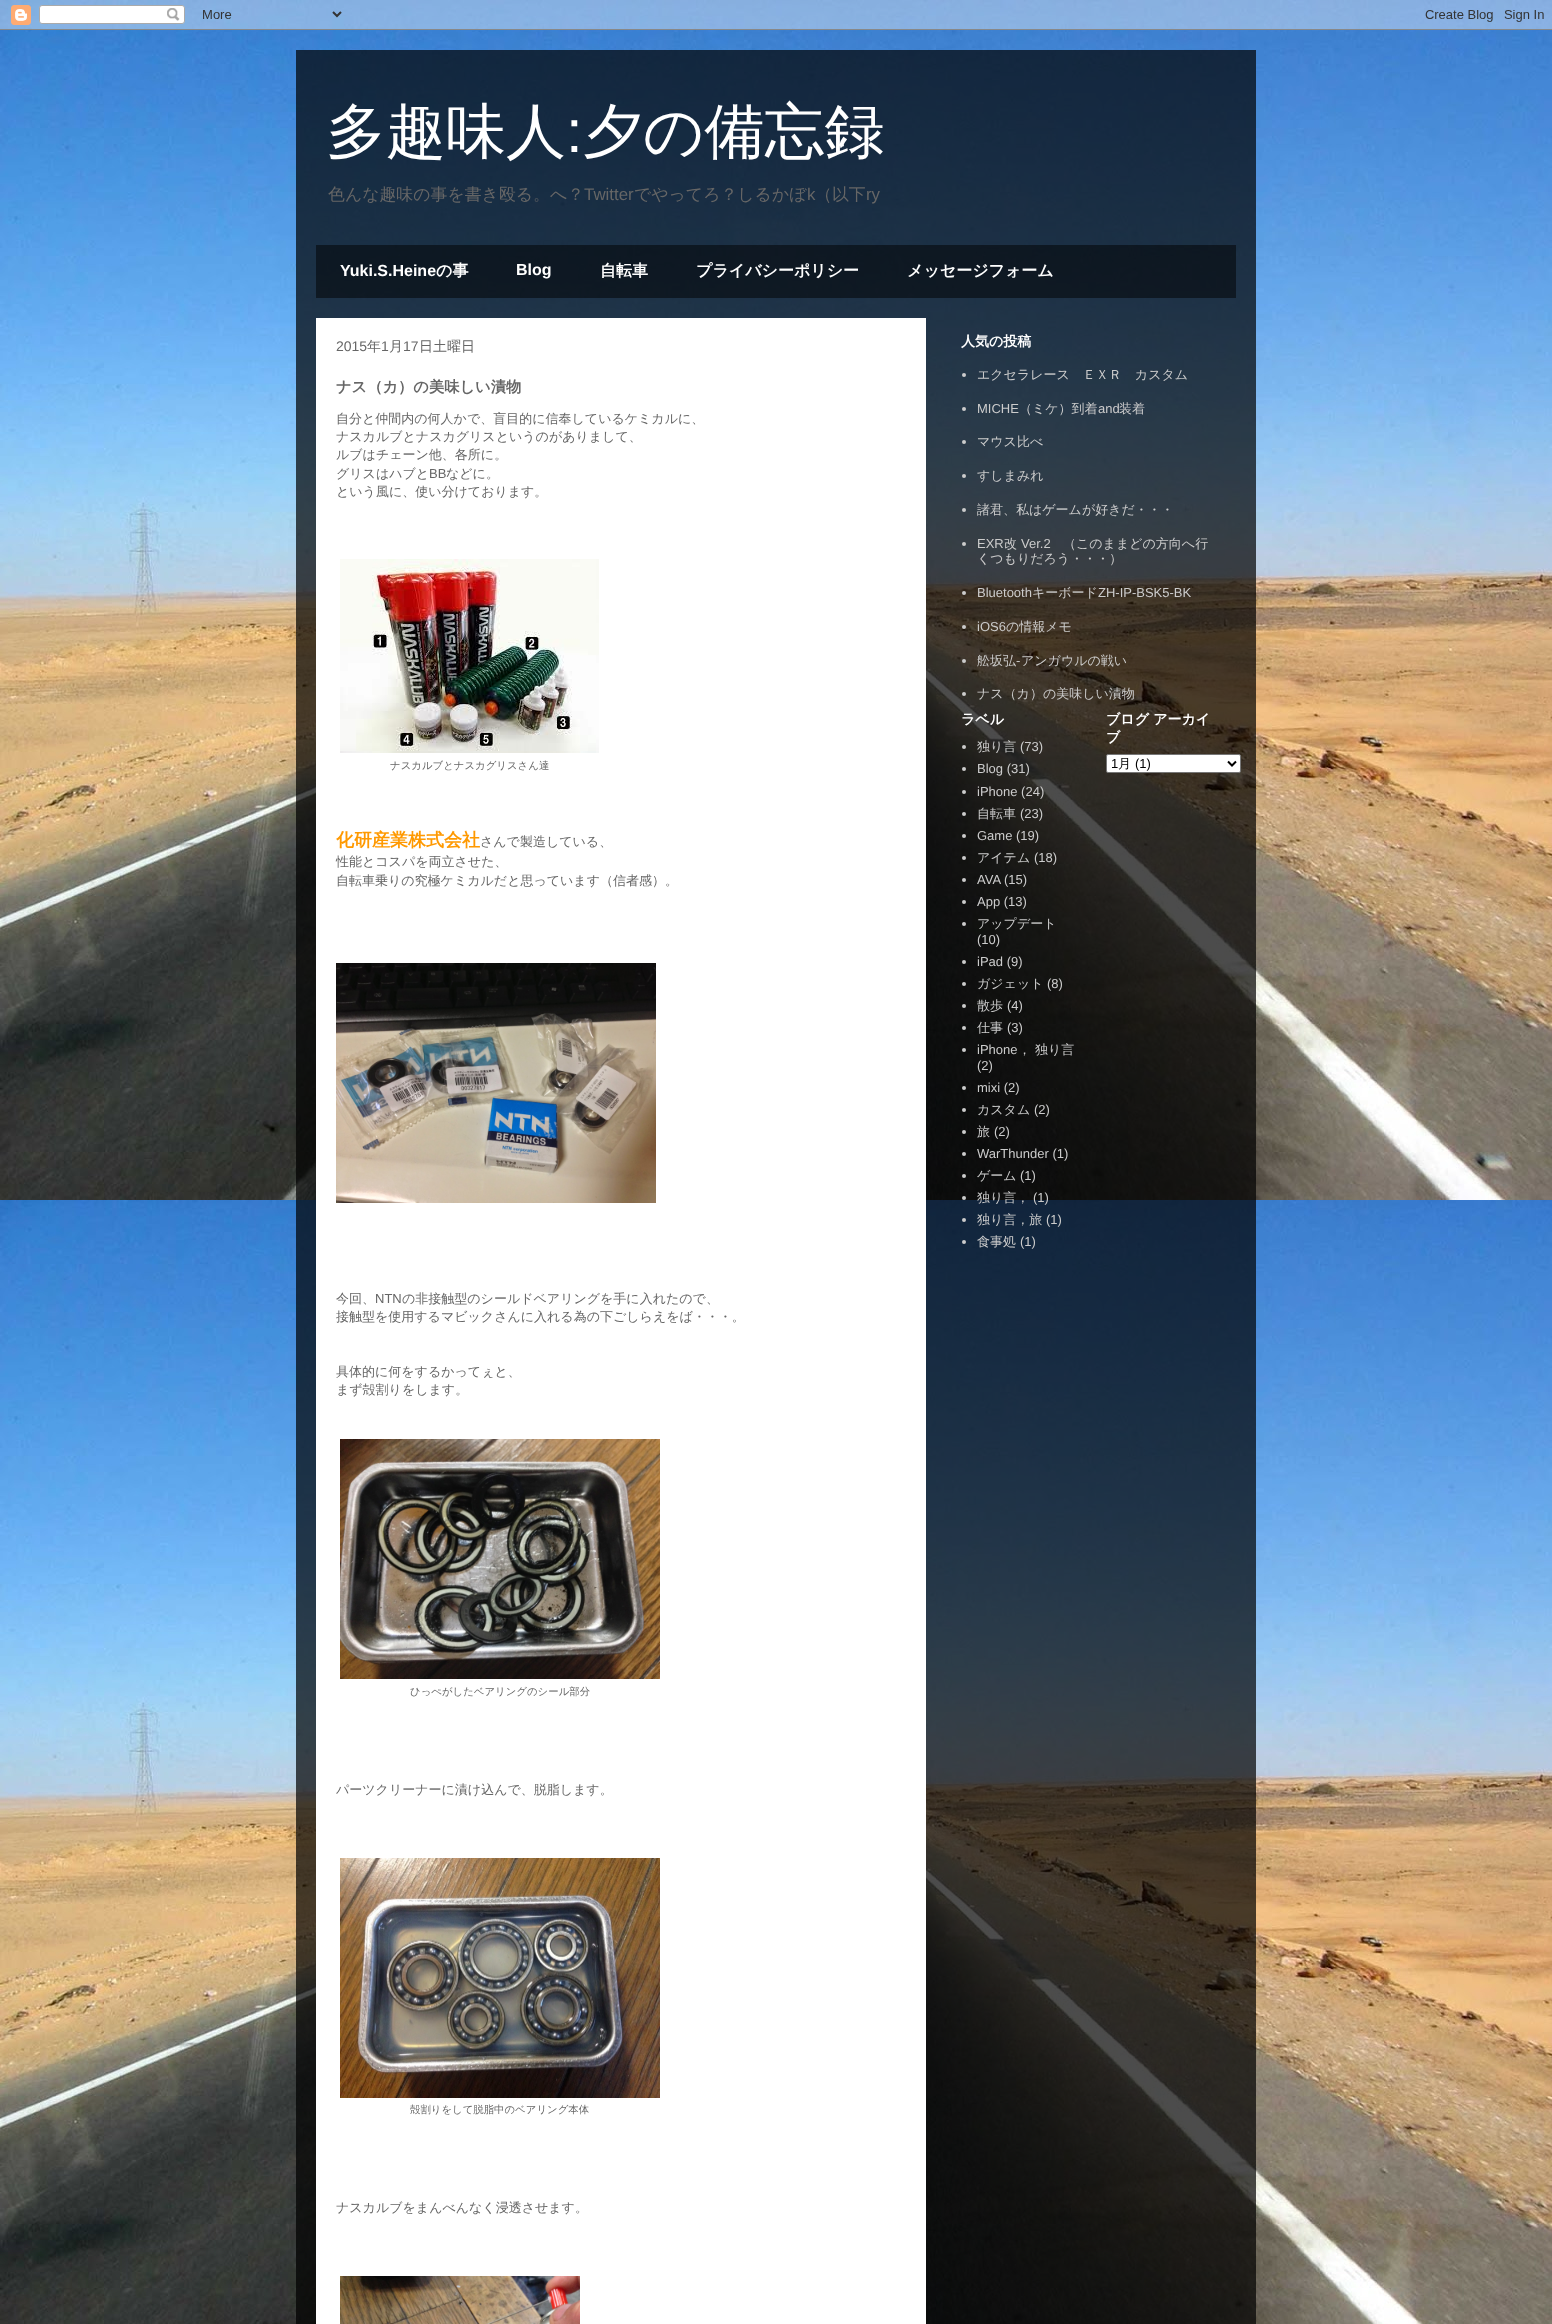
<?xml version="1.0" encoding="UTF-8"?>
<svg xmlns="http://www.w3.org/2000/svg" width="1552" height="2324">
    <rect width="100%" height="100%" fill="#FFFFFF"/>
    <image x="0" y="0" width="1552" height="2324" href="img_01.png"/>
    <image x="0" y="0" width="1552" height="30" href="img_02.png"/>
    <rect x="296" y="50" width="960" height="2274" fill="#000000" fill-opacity="0.7"/>
    <text x="326" y="152" font-family="WenQuanYi Zen Hei" font-size="60" font-weight="500" fill="#FFFFFF">多趣味人</text>
    <text x="566" y="152" font-family="Liberation Sans" font-size="60" fill="#FFFFFF">:</text>
    <text x="583" y="152" font-family="WenQuanYi Zen Hei" font-size="60" font-weight="500" fill="#FFFFFF">夕の備忘録</text>
    <text x="328" y="200" font-family="WenQuanYi Zen Hei" font-size="16.9" font-weight="500" fill="#666666">色んな趣味の事を書き殴る。へ？</text>
    <text x="584" y="200" font-family="Liberation Sans" font-size="16.9" fill="#666666">Twitter</text>
    <text x="634" y="200" font-family="WenQuanYi Zen Hei" font-size="16.9" font-weight="500" fill="#666666">でやってろ？しるかぼ</text>
    <text x="807" y="200" font-family="Liberation Sans" font-size="16.9" fill="#666666">k</text>
    <text x="815" y="200" font-family="WenQuanYi Zen Hei" font-size="16.9" font-weight="500" fill="#666666">（以下</text>
    <text x="866" y="200" font-family="Liberation Sans" font-size="16.9" fill="#666666">ry</text>
    <rect x="316" y="245" width="920" height="53" fill="#000000" fill-opacity="0.5"/>
    <text x="340" y="276" font-family="Liberation Sans" font-size="16" font-weight="700" fill="#FFFFFF">Yuki.S.Heine</text>
    <text x="436" y="276" font-family="WenQuanYi Zen Hei" font-size="16" font-weight="700" fill="#FFFFFF">の事</text>
    <text x="516" y="275" font-family="Liberation Sans" font-size="16" font-weight="700" fill="#FFFFFF">Blog</text>
    <text x="600" y="276" font-family="WenQuanYi Zen Hei" font-size="16" font-weight="700" fill="#FFFFFF">自転車</text>
    <text x="696" y="276" font-family="WenQuanYi Zen Hei" font-size="16" font-weight="700" fill="#FFFFFF">プライバシーポリシー</text>
    <text x="907" y="276" font-family="WenQuanYi Zen Hei" font-size="16" font-weight="700" fill="#FFFFFF">メッセージフォーム</text>
    <rect x="316" y="318" width="610" height="2006" fill="#FFFFFF"/>
    <text x="336" y="351" font-family="Liberation Sans" font-size="14" fill="#666666">2015</text>
    <text x="367" y="351" font-family="WenQuanYi Zen Hei" font-size="14" font-weight="500" fill="#666666">年</text>
    <text x="381" y="351" font-family="Liberation Sans" font-size="14" fill="#666666">1</text>
    <text x="389" y="351" font-family="WenQuanYi Zen Hei" font-size="14" font-weight="500" fill="#666666">月</text>
    <text x="403" y="351" font-family="Liberation Sans" font-size="14" fill="#666666">17</text>
    <text x="419" y="351" font-family="WenQuanYi Zen Hei" font-size="14" font-weight="500" fill="#666666">日土曜日</text>
    <text x="336" y="392" font-family="WenQuanYi Zen Hei" font-size="15.25" font-weight="700" fill="#666666">ナス（カ）の美味しい漬物</text>
    <text font-family="WenQuanYi Zen Hei" font-size="13" font-weight="500" fill="#666666">
        <tspan x="336" y="423">自分と仲間内の何人かで、盲目的に信奉しているケミカルに、</tspan>
        <tspan x="336" y="441">ナスカルブとナスカグリスというのがありまして、</tspan>
        <tspan x="336" y="459">ルブはチェーン他、各所に。</tspan>
        <tspan x="336" y="478">グリスはハブと</tspan>
    </text>
    <text x="429" y="478" font-family="Liberation Sans" font-size="13" fill="#666666">BB</text>
    <text x="446" y="478" font-family="WenQuanYi Zen Hei" font-size="13" font-weight="500" fill="#666666">などに。</text>
    <text x="336" y="496" font-family="WenQuanYi Zen Hei" font-size="13" font-weight="500" fill="#666666">という風に、使い分けております。</text>
    <image x="340" y="559" width="259" height="194" href="img_03.png"/>
    <text x="390" y="769" font-family="WenQuanYi Zen Hei" font-size="10.4" font-weight="500" fill="#666666">ナスカルブとナスカグリスさん達</text>
    <text x="336" y="846" font-family="WenQuanYi Zen Hei" font-size="18" font-weight="700" fill="#FF9900">化研産業株式会社</text>
    <text x="480" y="846" font-family="WenQuanYi Zen Hei" font-size="13" font-weight="500" fill="#666666">さんで製造している、</text>
    <text font-family="WenQuanYi Zen Hei" font-size="13" font-weight="500" fill="#666666">
        <tspan x="336" y="866">性能とコスパを両立させた、</tspan>
        <tspan x="336" y="885">自転車乗りの究極ケミカルだと思っています（信者感）。</tspan>
    </text>
    <image x="336" y="963" width="320" height="240" href="img_04.png"/>
    <text x="336" y="1303" font-family="WenQuanYi Zen Hei" font-size="13" font-weight="500" fill="#666666">今回、</text>
    <text x="375" y="1303" font-family="Liberation Sans" font-size="13" fill="#666666">NTN</text>
    <text x="402" y="1303" font-family="WenQuanYi Zen Hei" font-size="13" font-weight="500" fill="#666666">の非接触型のシールドベアリングを手に入れたので、</text>
    <text x="336" y="1321" font-family="WenQuanYi Zen Hei" font-size="13" font-weight="500" fill="#666666">接触型を使用するマビックさんに入れる為の下ごしらえをば・・・。</text>
    <text font-family="WenQuanYi Zen Hei" font-size="13" font-weight="500" fill="#666666">
        <tspan x="336" y="1376">具体的に何をするかってぇと、</tspan>
        <tspan x="336" y="1394">まず殻割りをします。</tspan>
    </text>
    <image x="340" y="1439" width="320" height="240" href="img_05.png"/>
    <text x="410" y="1695" font-family="WenQuanYi Zen Hei" font-size="10.4" font-weight="500" fill="#666666">ひっぺがしたベアリングのシール部分</text>
    <text x="336" y="1794" font-family="WenQuanYi Zen Hei" font-size="13" font-weight="500" fill="#666666">パーツクリーナーに漬け込んで、脱脂します。</text>
    <image x="340" y="1858" width="320" height="240" href="img_06.png"/>
    <text x="410" y="2113" font-family="WenQuanYi Zen Hei" font-size="10.4" font-weight="500" fill="#666666">殻割りをして脱脂中のベアリング本体</text>
    <text x="336" y="2212" font-family="WenQuanYi Zen Hei" font-size="13" font-weight="500" fill="#666666">ナスカルブをまんべんなく浸透させます。</text>
    <image x="340" y="2276" width="240" height="48" href="img_07.png"/>
    <text x="961" y="346" font-family="WenQuanYi Zen Hei" font-size="14" font-weight="700" fill="#FFFFFF">人気の投稿</text>
    <circle cx="964" cy="375" r="2" fill="#CCCCCC"/>
    <text x="977" y="379" font-family="WenQuanYi Zen Hei" font-size="13" font-weight="500" fill="#CCCCCC">エクセラレース　ＥＸＲ　カスタム</text>
    <circle cx="964" cy="409" r="2" fill="#CCCCCC"/>
    <text x="977" y="413" font-family="Liberation Sans" font-size="13" fill="#CCCCCC">MICHE</text>
    <text x="1019" y="413" font-family="WenQuanYi Zen Hei" font-size="13" font-weight="500" fill="#CCCCCC">（ミケ）到着</text>
    <text x="1098" y="413" font-family="Liberation Sans" font-size="13" fill="#CCCCCC">and</text>
    <text x="1119" y="413" font-family="WenQuanYi Zen Hei" font-size="13" font-weight="500" fill="#CCCCCC">装着</text>
    <circle cx="964" cy="442" r="2" fill="#CCCCCC"/>
    <text x="977" y="446" font-family="WenQuanYi Zen Hei" font-size="13" font-weight="500" fill="#CCCCCC">マウス比べ</text>
    <circle cx="964" cy="476" r="2" fill="#CCCCCC"/>
    <text x="977" y="480" font-family="WenQuanYi Zen Hei" font-size="13" font-weight="500" fill="#CCCCCC">すしまみれ</text>
    <circle cx="964" cy="510" r="2" fill="#CCCCCC"/>
    <text x="977" y="514" font-family="WenQuanYi Zen Hei" font-size="13" font-weight="500" fill="#CCCCCC">諸君、私はゲームが好きだ・・・</text>
    <circle cx="964" cy="544" r="2" fill="#CCCCCC"/>
    <text x="977" y="548" font-family="Liberation Sans" font-size="13" fill="#CCCCCC">EXR</text>
    <text x="1004" y="548" font-family="WenQuanYi Zen Hei" font-size="13" font-weight="500" fill="#CCCCCC">改</text>
    <text x="1021" y="548" font-family="Liberation Sans" font-size="13" fill="#CCCCCC">Ver.2</text>
    <text x="1063" y="548" font-family="WenQuanYi Zen Hei" font-size="13" font-weight="500" fill="#CCCCCC">（このままどの方向へ行</text>
    <text x="977" y="563" font-family="WenQuanYi Zen Hei" font-size="13" font-weight="500" fill="#CCCCCC">くつもりだろう・・・）</text>
    <circle cx="964" cy="593" r="2" fill="#CCCCCC"/>
    <text x="977" y="597" font-family="Liberation Sans" font-size="13" fill="#CCCCCC">Bluetooth</text>
    <text x="1032" y="597" font-family="WenQuanYi Zen Hei" font-size="13" font-weight="500" fill="#CCCCCC">キーボード</text>
    <text x="1098" y="597" font-family="Liberation Sans" font-size="13" fill="#CCCCCC">ZH-IP-BSK5-BK</text>
    <circle cx="964" cy="627" r="2" fill="#CCCCCC"/>
    <text x="977" y="631" font-family="Liberation Sans" font-size="13" fill="#CCCCCC">iOS6</text>
    <text x="1006" y="631" font-family="WenQuanYi Zen Hei" font-size="13" font-weight="500" fill="#CCCCCC">の情報メモ</text>
    <circle cx="964" cy="661" r="2" fill="#CCCCCC"/>
    <text x="977" y="665" font-family="WenQuanYi Zen Hei" font-size="13" font-weight="500" fill="#CCCCCC">舩坂弘</text>
    <text x="1016" y="665" font-family="Liberation Sans" font-size="13" fill="#CCCCCC">-</text>
    <text x="1021" y="665" font-family="WenQuanYi Zen Hei" font-size="13" font-weight="500" fill="#CCCCCC">アンガウルの戦い</text>
    <circle cx="964" cy="694" r="2" fill="#CCCCCC"/>
    <text x="977" y="698" font-family="WenQuanYi Zen Hei" font-size="13" font-weight="500" fill="#CCCCCC">ナス（カ）の美味しい漬物</text>
    <text x="961" y="724" font-family="WenQuanYi Zen Hei" font-size="14" font-weight="700" fill="#FFFFFF">ラベル</text>
    <circle cx="964" cy="747" r="2" fill="#CCCCCC"/>
    <text x="977" y="751" font-family="WenQuanYi Zen Hei" font-size="13" font-weight="500" fill="#CCCCCC">独り言</text>
    <text x="1020" y="751" font-family="Liberation Sans" font-size="13" fill="#CCCCCC">(73)</text>
    <circle cx="964" cy="769" r="2" fill="#CCCCCC"/>
    <text x="977" y="773" font-family="Liberation Sans" font-size="13" fill="#CCCCCC">Blog (31)</text>
    <circle cx="964" cy="792" r="2" fill="#CCCCCC"/>
    <text x="977" y="796" font-family="Liberation Sans" font-size="13" fill="#CCCCCC">iPhone (24)</text>
    <circle cx="964" cy="814" r="2" fill="#CCCCCC"/>
    <text x="977" y="818" font-family="WenQuanYi Zen Hei" font-size="13" font-weight="500" fill="#CCCCCC">自転車</text>
    <text x="1020" y="818" font-family="Liberation Sans" font-size="13" fill="#CCCCCC">(23)</text>
    <circle cx="964" cy="836" r="2" fill="#CCCCCC"/>
    <text x="977" y="840" font-family="Liberation Sans" font-size="13" fill="#CCCCCC">Game (19)</text>
    <circle cx="964" cy="858" r="2" fill="#CCCCCC"/>
    <text x="977" y="862" font-family="WenQuanYi Zen Hei" font-size="13" font-weight="500" fill="#CCCCCC">アイテム</text>
    <text x="1034" y="862" font-family="Liberation Sans" font-size="13" fill="#CCCCCC">(18)</text>
    <circle cx="964" cy="880" r="2" fill="#CCCCCC"/>
    <text x="977" y="884" font-family="Liberation Sans" font-size="13" fill="#CCCCCC">AVA (15)</text>
    <circle cx="964" cy="902" r="2" fill="#CCCCCC"/>
    <text x="977" y="906" font-family="Liberation Sans" font-size="13" fill="#CCCCCC">App (13)</text>
    <circle cx="964" cy="924" r="2" fill="#CCCCCC"/>
    <text x="977" y="928" font-family="WenQuanYi Zen Hei" font-size="13" font-weight="500" fill="#CCCCCC">アップデート</text>
    <text x="977" y="944" font-family="Liberation Sans" font-size="13" fill="#CCCCCC">(10)</text>
    <circle cx="964" cy="962" r="2" fill="#CCCCCC"/>
    <text x="977" y="966" font-family="Liberation Sans" font-size="13" fill="#CCCCCC">iPad (9)</text>
    <circle cx="964" cy="984" r="2" fill="#CCCCCC"/>
    <text x="977" y="988" font-family="WenQuanYi Zen Hei" font-size="13" font-weight="500" fill="#CCCCCC">ガジェット</text>
    <text x="1047" y="988" font-family="Liberation Sans" font-size="13" fill="#CCCCCC">(8)</text>
    <circle cx="964" cy="1006" r="2" fill="#CCCCCC"/>
    <text x="977" y="1010" font-family="WenQuanYi Zen Hei" font-size="13" font-weight="500" fill="#CCCCCC">散歩</text>
    <text x="1007" y="1010" font-family="Liberation Sans" font-size="13" fill="#CCCCCC">(4)</text>
    <circle cx="964" cy="1028" r="2" fill="#CCCCCC"/>
    <text x="977" y="1032" font-family="WenQuanYi Zen Hei" font-size="13" font-weight="500" fill="#CCCCCC">仕事</text>
    <text x="1007" y="1032" font-family="Liberation Sans" font-size="13" fill="#CCCCCC">(3)</text>
    <circle cx="964" cy="1050" r="2" fill="#CCCCCC"/>
    <text x="977" y="1054" font-family="Liberation Sans" font-size="13" fill="#CCCCCC">iPhone</text>
    <text x="1018" y="1054" font-family="WenQuanYi Zen Hei" font-size="13" font-weight="500" fill="#CCCCCC">， 独り言</text>
    <text x="977" y="1070" font-family="Liberation Sans" font-size="13" fill="#CCCCCC">(2)</text>
    <circle cx="964" cy="1088" r="2" fill="#CCCCCC"/>
    <text x="977" y="1092" font-family="Liberation Sans" font-size="13" fill="#CCCCCC">mixi (2)</text>
    <circle cx="964" cy="1110" r="2" fill="#CCCCCC"/>
    <text x="977" y="1114" font-family="WenQuanYi Zen Hei" font-size="13" font-weight="500" fill="#CCCCCC">カスタム</text>
    <text x="1034" y="1114" font-family="Liberation Sans" font-size="13" fill="#CCCCCC">(2)</text>
    <circle cx="964" cy="1132" r="2" fill="#CCCCCC"/>
    <text x="977" y="1136" font-family="WenQuanYi Zen Hei" font-size="13" font-weight="500" fill="#CCCCCC">旅</text>
    <text x="994" y="1136" font-family="Liberation Sans" font-size="13" fill="#CCCCCC">(2)</text>
    <circle cx="964" cy="1154" r="2" fill="#CCCCCC"/>
    <text x="977" y="1158" font-family="Liberation Sans" font-size="13" fill="#CCCCCC">WarThunder (1)</text>
    <circle cx="964" cy="1176" r="2" fill="#CCCCCC"/>
    <text x="977" y="1180" font-family="WenQuanYi Zen Hei" font-size="13" font-weight="500" fill="#CCCCCC">ゲーム</text>
    <text x="1020" y="1180" font-family="Liberation Sans" font-size="13" fill="#CCCCCC">(1)</text>
    <circle cx="964" cy="1198" r="2" fill="#CCCCCC"/>
    <text x="977" y="1202" font-family="WenQuanYi Zen Hei" font-size="13" font-weight="500" fill="#CCCCCC">独り言，</text>
    <text x="1033" y="1202" font-family="Liberation Sans" font-size="13" fill="#CCCCCC">(1)</text>
    <circle cx="964" cy="1220" r="2" fill="#CCCCCC"/>
    <text x="977" y="1224" font-family="WenQuanYi Zen Hei" font-size="13" font-weight="500" fill="#CCCCCC">独り言，旅</text>
    <text x="1046" y="1224" font-family="Liberation Sans" font-size="13" fill="#CCCCCC">(1)</text>
    <circle cx="964" cy="1242" r="2" fill="#CCCCCC"/>
    <text x="977" y="1246" font-family="WenQuanYi Zen Hei" font-size="13" font-weight="500" fill="#CCCCCC">食事処</text>
    <text x="1020" y="1246" font-family="Liberation Sans" font-size="13" fill="#CCCCCC">(1)</text>
    <text font-family="WenQuanYi Zen Hei" font-size="14" font-weight="700" fill="#FFFFFF">
        <tspan x="1106" y="724">ブログ アーカイ</tspan>
        <tspan x="1106" y="742">ブ</tspan>
    </text>
    <rect x="1106.5" y="754.5" width="134" height="18" rx="1.5" fill="#FFFFFF" stroke="#767676"/>
    <path d="M 1228 761.5 L 1232 765.5 L 1236 761.5" fill="none" stroke="#000000" stroke-width="2"/>
    <text x="1111" y="768" font-family="Liberation Sans" font-size="13" fill="#000000">1</text>
    <text x="1118" y="768" font-family="WenQuanYi Zen Hei" font-size="13" font-weight="500" fill="#000000">月</text>
    <text x="1135" y="768" font-family="Liberation Sans" font-size="13" fill="#000000">(1)</text>
</svg>
